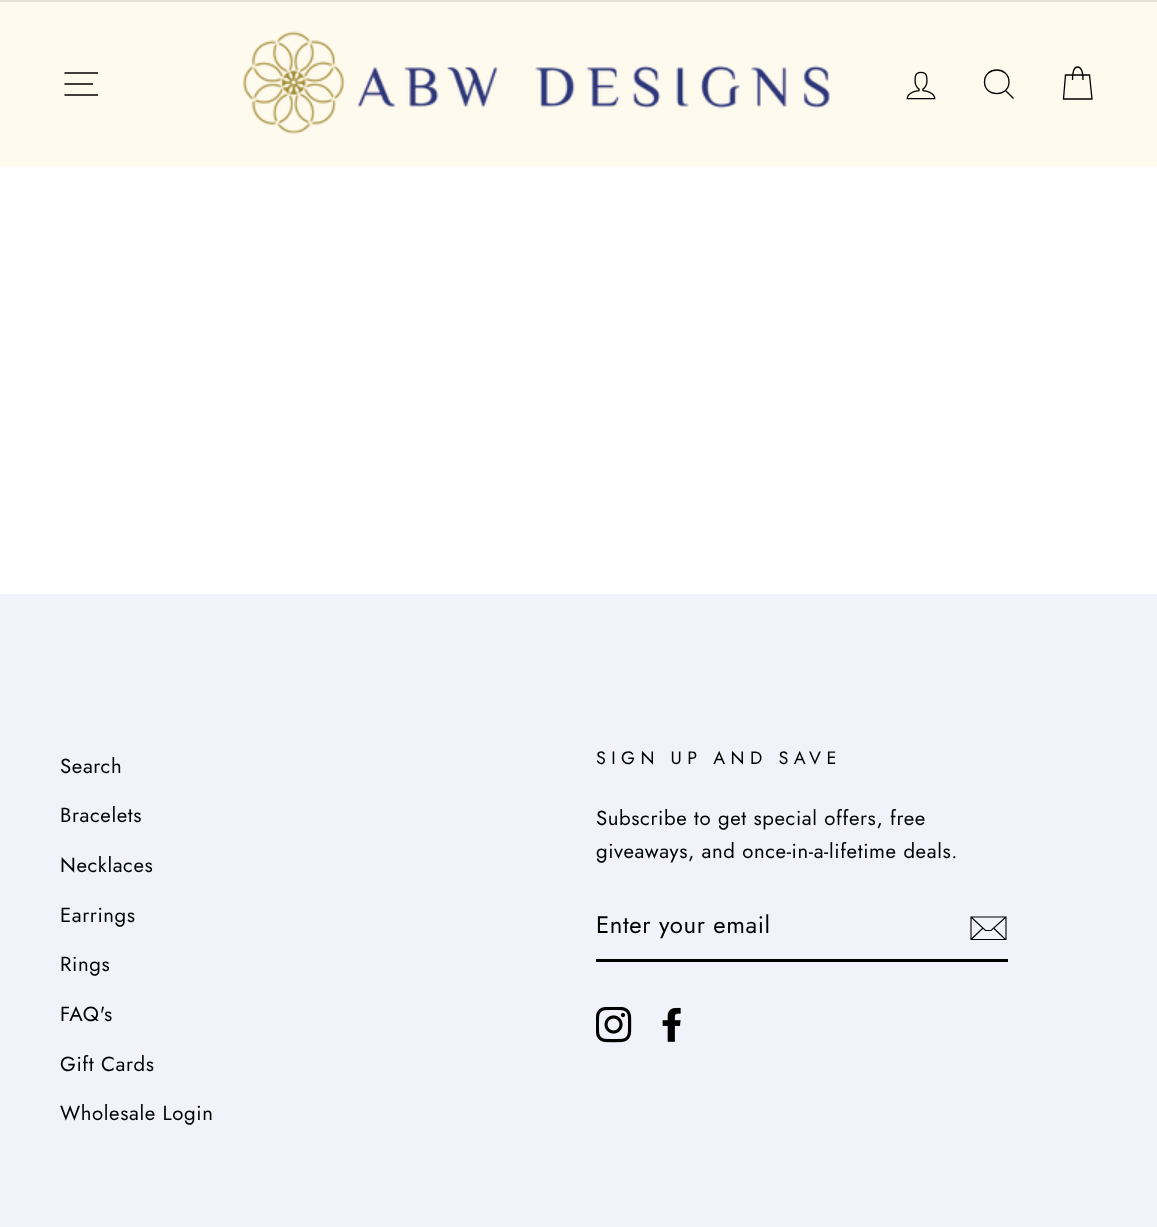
<?xml version="1.0" encoding="UTF-8"?>
<svg xmlns="http://www.w3.org/2000/svg" width="1157" height="1227">
    <rect width="100%" height="100%" fill="#FFFFFF"/>
    <rect x="0" y="2" width="1157" height="165" fill="#FFFAEE"/>
    <rect x="0" y="0" width="1157" height="2" fill="#E6E1D6"/>
    <path d="M 64.5 73 H 98 M 64.5 84 H 93 M 64.5 95 H 98" fill="none" stroke="#000000" stroke-width="1.3"/>
    <image x="242" y="31" width="588" height="103" href="img_01.png"/>
    <image x="906" y="71" width="30" height="29" href="img_02.png"/>
    <path d="M 1009 82 C 1009 97.5 984.5 97.5 984.5 82 C 984.5 66 1009 66 1009 82 Z M 1013.5 98.5 L 1005.5 90.5" fill="none" stroke="#000000" stroke-width="1.3"/>
    <path d="M 1072.5 80 C 1072.5 69.5 1074.5 67 1077.5 67 C 1080.5 67 1083 69.5 1083 80 M 1065.5 75 H 1089.5 L 1092 99 H 1063.5 Z" fill="none" stroke="#000000" stroke-width="1.3"/>
    <rect x="0" y="594" width="1157" height="633" fill="#F1F2FA"/>
    <text x="60" y="773" font-family="Jost" font-size="20.4" letter-spacing="0.6" fill="#000000">Search</text>
    <text x="60" y="822" font-family="Jost" font-size="20.4" letter-spacing="0.6" fill="#000000">Bracelets</text>
    <text x="60" y="872" font-family="Jost" font-size="20.4" letter-spacing="0.6" fill="#000000">Necklaces</text>
    <text x="60" y="922" font-family="Jost" font-size="20.4" letter-spacing="0.6" fill="#000000">Earrings</text>
    <text x="60" y="971" font-family="Jost" font-size="20.4" letter-spacing="0.6" fill="#000000">Rings</text>
    <text x="60" y="1021" font-family="Jost" font-size="20.4" letter-spacing="0.6" fill="#000000">FAQ's</text>
    <text x="60" y="1071" font-family="Jost" font-size="20.4" letter-spacing="0.6" fill="#000000">Gift Cards</text>
    <text x="60" y="1120" font-family="Jost" font-size="20.4" letter-spacing="0.6" fill="#000000">Wholesale Login</text>
    <text x="596" y="764" font-family="Jost" font-size="18" letter-spacing="5.4" fill="#000000">SIGN UP AND SAVE</text>
    <text font-family="Jost" font-size="20.4" letter-spacing="0.6" fill="#000000">
        <tspan x="596" y="825">Subscribe to get special offers, free</tspan>
        <tspan x="596" y="858">giveaways, and once-in-a-lifetime deals.</tspan>
    </text>
    <rect x="596" y="959" width="412" height="3" fill="#000000"/>
    <text x="596" y="933" font-family="Jost" font-size="24" letter-spacing="0.6" fill="#000000">Enter your email</text>
    <path d="M 1006 939.5 H 971 V 917 H 1006 Z M 971 917 L 985.5 930.5 H 991 L 1006 917 M 983 928 L 971.5 939 M 1005.5 939.5 L 993.5 928" fill="none" stroke="#000000" stroke-width="1.1"/>
    <image x="596" y="1007" width="36" height="36" href="img_03.png"/>
    <image x="662" y="1007" width="19" height="35" href="img_04.png"/>
</svg>
